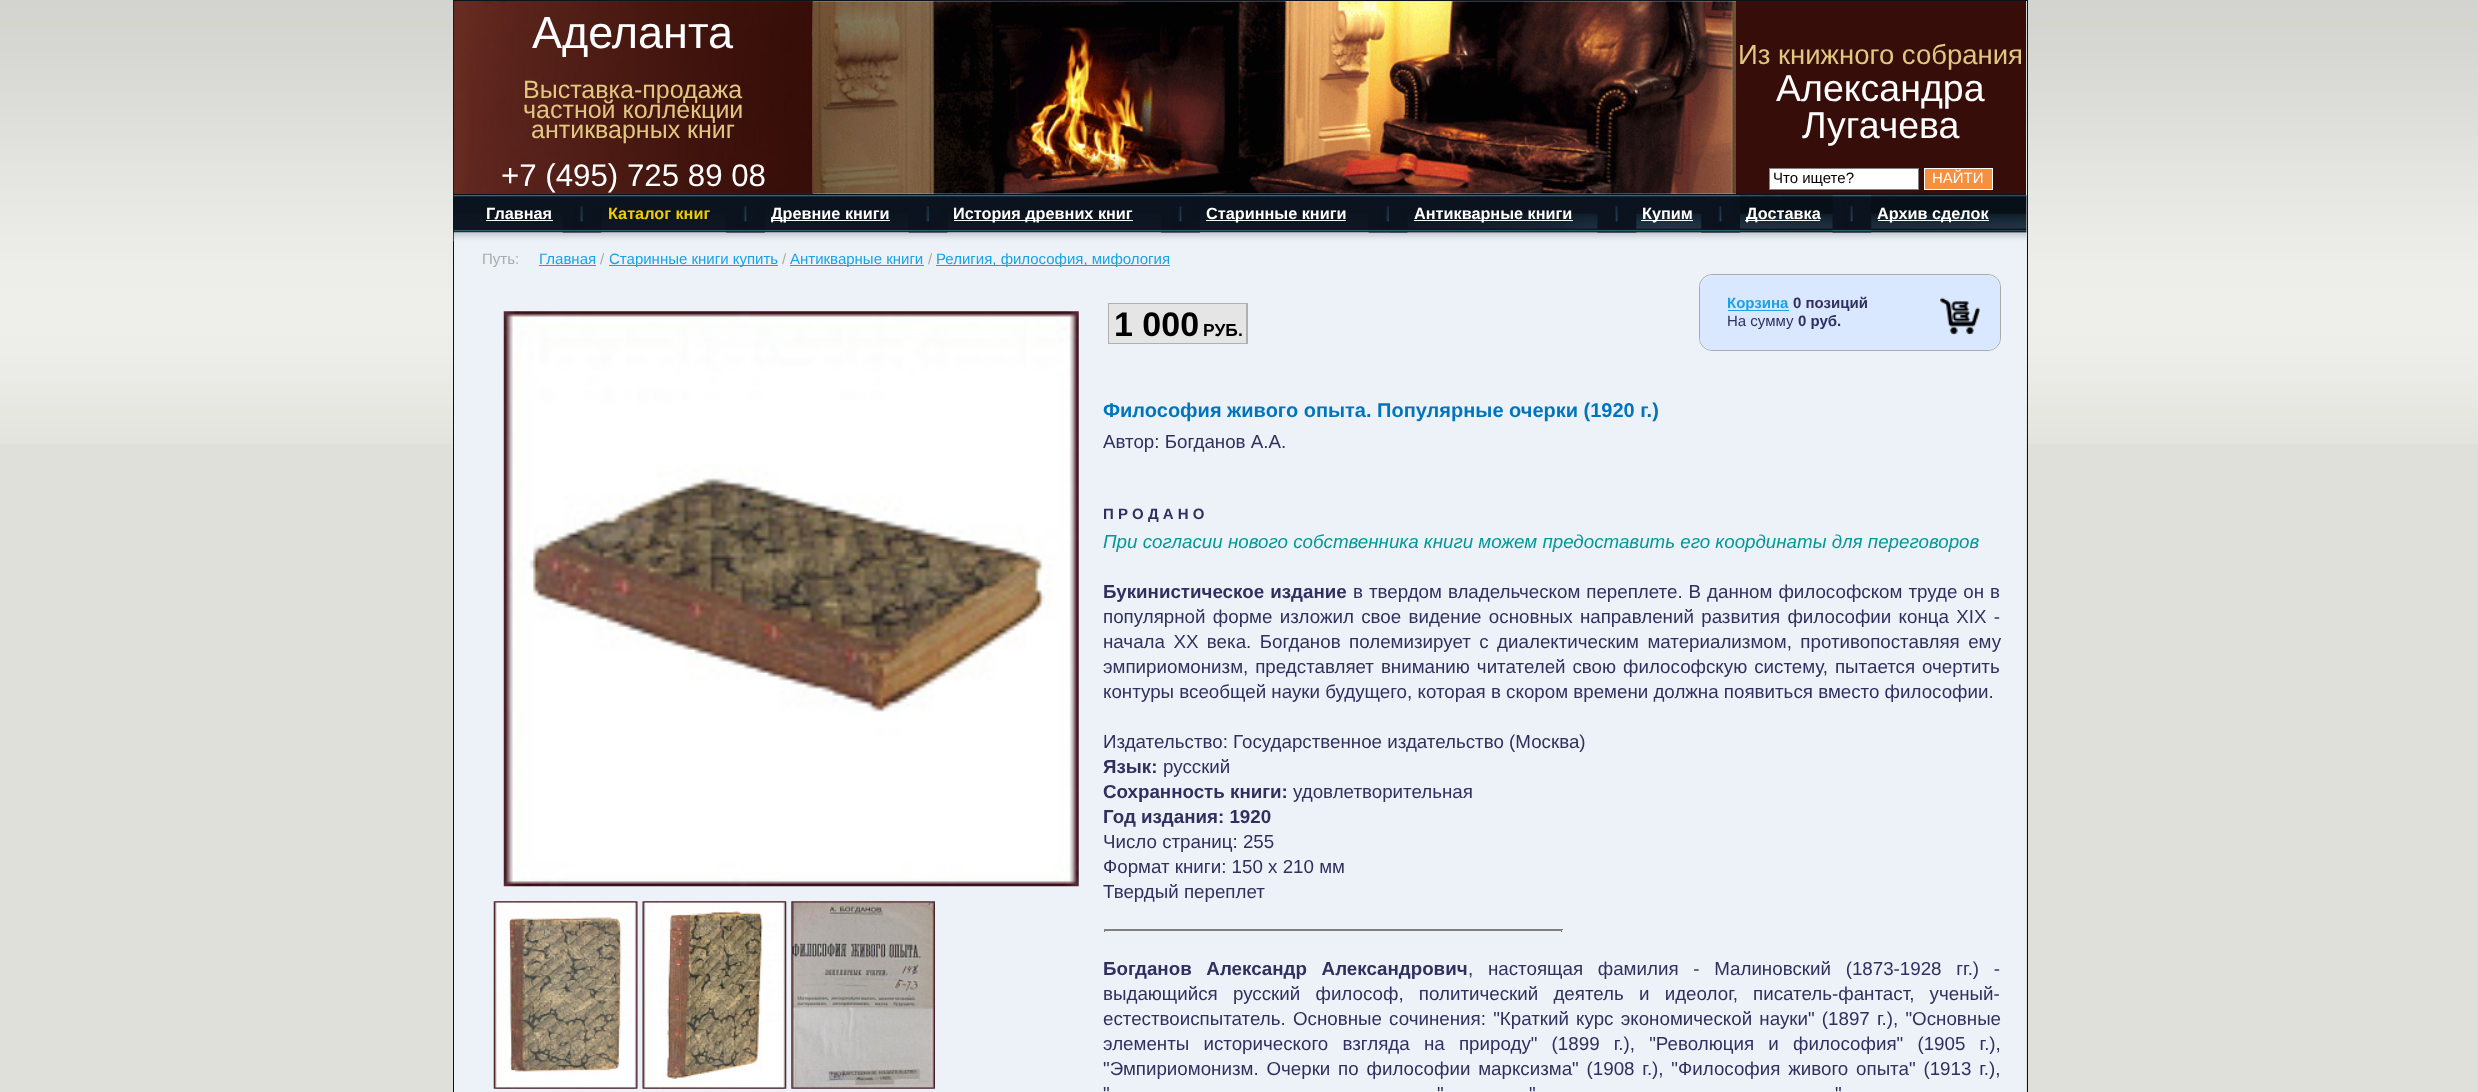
<?xml version="1.0" encoding="UTF-8"?>
<svg xmlns="http://www.w3.org/2000/svg" width="2478" height="1092">
    <rect width="100%" height="100%" fill="#E0E0DA"/>
    <image x="0" y="0" width="2478" height="444" href="img_01.png"/>
    <rect x="453.5" y="0.5" width="1574" height="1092" fill="none" stroke="#0B131E"/>
    <rect x="454" y="1" width="359" height="193" fill="#662B22"/>
    <image x="453" y="1" width="360" height="193" href="img_02.png"/>
    <text x="532" y="48" font-family="Liberation Sans" font-size="45" fill="#FFFFFF">Аделанта</text>
    <text font-family="Liberation Sans" font-size="25" fill="#E2C781">
        <tspan x="523" y="98">Выставка-продажа</tspan>
        <tspan x="523" y="118">частной коллекции</tspan>
    </text>
    <text x="531" y="138" font-family="Liberation Sans" font-size="25" fill="#E2C781">антикварных книг</text>
    <text x="501" y="186" font-family="Liberation Sans" font-size="31.25" fill="#FFFFFF">+7 (495) 725 89 08</text>
    <image x="812" y="1" width="924" height="193" href="img_03.png"/>
    <rect x="1736" y="1" width="290" height="193" fill="#360D09"/>
    <text x="1738" y="64" font-family="Liberation Sans" font-size="27.5" fill="#E2C781">Из книжного собрания</text>
    <text x="1776" y="101" font-family="Liberation Sans" font-size="37.5" fill="#FFFFFF">Александра</text>
    <text x="1802" y="138" font-family="Liberation Sans" font-size="37.5" fill="#FFFFFF">Лугачева</text>
    <rect x="1769.5" y="168.5" width="149" height="21" fill="#FFFFFF" stroke="#808080"/>
    <text x="1773" y="183" font-family="Liberation Sans" font-size="15" fill="#000000">Что ищете?</text>
    <rect x="1924.5" y="168.5" width="68" height="21" fill="#F59040" stroke="#FFFFFF"/>
    <text x="1932" y="183" font-family="Liberation Sans" font-size="15" fill="#FFFFFF">НАЙТИ</text>
    <rect x="454" y="194" width="1572" height="1" fill="#08151D"/>
    <image x="453" y="195" width="1574" height="38" href="img_04.png"/>
    <image x="1390" y="195" width="637" height="38" href="img_05.png"/>
    <text x="486" y="219" font-family="Liberation Sans" font-size="16.25" font-weight="700" fill="#FFFFFF">Главная</text>
    <rect x="486" y="220" width="67" height="1" fill="#FFFFFF"/>
    <rect x="454" y="241" width="1572" height="851" fill="#EDF2F8"/>
    <image x="453" y="232" width="1574" height="10" href="img_13.png"/>
    <image x="562" y="206" width="40" height="27" href="img_06.png"/>
    <text x="608" y="219" font-family="Liberation Sans" font-size="16.25" font-weight="700" fill="#F0CC00">Каталог книг</text>
    <image x="726" y="205" width="39" height="28" href="img_07.png"/>
    <rect x="771" y="220" width="119" height="1" fill="#FFFFFF"/>
    <text x="771" y="219" font-family="Liberation Sans" font-size="16.25" font-weight="700" fill="#FFFFFF">Древние книги</text>
    <image x="908" y="206" width="40" height="27" href="img_08.png"/>
    <rect x="954" y="220" width="179" height="1" fill="#FFFFFF"/>
    <text x="953" y="219" font-family="Liberation Sans" font-size="16.25" font-weight="700" fill="#FFFFFF">История древних книг</text>
    <image x="1161" y="205" width="39" height="28" href="img_07.png"/>
    <rect x="1206" y="220" width="140" height="1" fill="#FFFFFF"/>
    <text x="1206" y="219" font-family="Liberation Sans" font-size="16.25" font-weight="700" fill="#FFFFFF">Старинные книги</text>
    <image x="1368" y="206" width="40" height="27" href="img_09.png"/>
    <rect x="1414" y="220" width="159" height="1" fill="#FFFFFF"/>
    <text x="1414" y="219" font-family="Liberation Sans" font-size="16.25" font-weight="700" fill="#FFFFFF">Антикварные книги</text>
    <image x="1597" y="206" width="40" height="27" href="img_10.png"/>
    <rect x="1641" y="220" width="52" height="1" fill="#FFFFFF"/>
    <text x="1642" y="219" font-family="Liberation Sans" font-size="16.25" font-weight="700" fill="#FFFFFF">Купим</text>
    <image x="1701" y="195" width="39" height="38" href="img_11.png"/>
    <rect x="1745" y="220" width="75" height="1" fill="#FFFFFF"/>
    <text x="1746" y="219" font-family="Liberation Sans" font-size="16.25" font-weight="700" fill="#FFFFFF">Доставка</text>
    <image x="1832" y="195" width="40" height="38" href="img_12.png"/>
    <rect x="1878" y="220" width="111" height="1" fill="#FFFFFF"/>
    <text x="1877" y="219" font-family="Liberation Sans" font-size="16.25" font-weight="700" fill="#FFFFFF">Архив сделок</text>
    <text x="482" y="264" font-family="Liberation Sans" font-size="15" fill="#AAAAAA">Путь:</text>
    <text x="539" y="264" font-family="Liberation Sans" font-size="15" fill="#18A2E8">Главная</text>
    <rect x="539" y="265" width="57" height="1" fill="#18A2E8"/>
    <text x="600" y="264" font-family="Liberation Sans" font-size="15" fill="#AAAAAA">/</text>
    <rect x="609" y="265" width="169" height="1" fill="#18A2E8"/>
    <text x="609" y="264" font-family="Liberation Sans" font-size="15" fill="#18A2E8">Старинные книги купить</text>
    <text x="782" y="264" font-family="Liberation Sans" font-size="15" fill="#AAAAAA">/</text>
    <rect x="790" y="265" width="134" height="1" fill="#18A2E8"/>
    <text x="790" y="264" font-family="Liberation Sans" font-size="15" fill="#18A2E8">Антикварные книги</text>
    <text x="928" y="264" font-family="Liberation Sans" font-size="15" fill="#AAAAAA">/</text>
    <rect x="936" y="265" width="234" height="1" fill="#18A2E8"/>
    <text x="936" y="264" font-family="Liberation Sans" font-size="15" fill="#18A2E8">Религия, философия, мифология</text>
    <rect x="1699.5" y="274.5" width="301" height="76" rx="12.5" fill="#F7FAFF" stroke="#AAABAD"/>
    <rect x="1700" y="275" width="300" height="75" rx="13" fill="#D9E7FF"/>
    <rect x="1728" y="310" width="61" height="1" fill="#18A2E8"/>
    <text x="1727" y="308" font-family="Liberation Sans" font-size="15" font-weight="700" fill="#18A2E8">Корзина</text>
    <text x="1793" y="308" font-family="Liberation Sans" font-size="15" font-weight="700" fill="#303060">0 позиций</text>
    <text x="1727" y="326" font-family="Liberation Sans" font-size="15" fill="#303060">На сумму</text>
    <text x="1798" y="326" font-family="Liberation Sans" font-size="15" font-weight="700" fill="#303060">0 руб.</text>
    <image x="1940" y="297" width="40" height="38" href="img_14.png"/>
    <image x="503" y="311" width="576" height="576" href="img_15.png"/>
    <image x="493" y="901" width="145" height="188" href="img_16.png"/>
    <image x="642" y="901" width="145" height="188" href="img_17.png"/>
    <image x="791" y="901" width="144" height="188" href="img_18.png"/>
    <rect x="1108" y="303" width="140" height="41" fill="#B0B0B0"/>
    <rect x="1109" y="304" width="137" height="39" fill="#E5E5E5"/>
    <text x="1114" y="336" font-family="Liberation Sans" font-size="34" font-weight="700" fill="#000000">1 000</text>
    <text x="1203" y="336" font-family="Liberation Sans" font-size="17.5" font-weight="700" fill="#000000">РУБ.</text>
    <text x="1103" y="417" font-family="Liberation Sans" font-size="20" font-weight="700" fill="#0075BE">Философия живого опыта. Популярные очерки (1920 г.)</text>
    <text x="1103" y="448" font-family="Liberation Sans" font-size="18.75" fill="#303060">Автор: Богданов А.А.</text>
    <text x="1103" y="519" font-family="Liberation Sans" font-size="15" font-weight="700" fill="#303060">П Р О Д А Н О</text>
    <text x="1103" y="548" font-family="Liberation Sans" font-size="18.75" font-style="italic" fill="#009999">При согласии нового собственника книги можем предоставить его координаты для переговоров</text>
    <text x="1103" y="598" word-spacing="1" font-family="Liberation Sans" font-size="18.75" font-weight="700" fill="#303060">Букинистическое издание</text>
    <text x="1353" y="598" word-spacing="0.75" font-family="Liberation Sans" font-size="18.75" fill="#303060">в твердом владельческом переплете. В данном философском труде он в</text>
    <text font-family="Liberation Sans" font-size="18.75" fill="#303060">
        <tspan x="1103" y="623" word-spacing="2.1">популярной форме изложил свое видение основных направлений развития философии конца XIX -</tspan>
        <tspan x="1103" y="648" word-spacing="3.25">начала XX века. Богданов полемизирует с диалектическим материализмом, противопоставляя ему</tspan>
        <tspan x="1103" y="673" word-spacing="1.75">эмпириомонизм, представляет вниманию читателей свою философскую систему, пытается очертить</tspan>
        <tspan x="1103" y="698">контуры всеобщей науки будущего, которая в скором времени должна появиться вместо философии.</tspan>
    </text>
    <text x="1103" y="748" font-family="Liberation Sans" font-size="18.75" fill="#303060">Издательство: Государственное издательство (Москва)</text>
    <text x="1103" y="773" font-family="Liberation Sans" font-size="18.75" font-weight="700" fill="#303060">Язык:</text>
    <text x="1163" y="773" font-family="Liberation Sans" font-size="18.75" fill="#303060">русский</text>
    <text x="1103" y="798" font-family="Liberation Sans" font-size="18.75" font-weight="700" fill="#303060">Сохранность книги:</text>
    <text x="1293" y="798" font-family="Liberation Sans" font-size="18.75" fill="#303060">удовлетворительная</text>
    <text x="1103" y="823" font-family="Liberation Sans" font-size="18.75" font-weight="700" fill="#303060">Год издания: 1920</text>
    <text font-family="Liberation Sans" font-size="18.75" fill="#303060">
        <tspan x="1103" y="848">Число страниц: 255</tspan>
        <tspan x="1103" y="873">Формат книги: 150 х 210 мм</tspan>
        <tspan x="1103" y="898">Твердый переплет</tspan>
    </text>
    <rect x="1105" y="930" width="456" height="1" fill="#808080"/>
    <rect x="1104" y="929" width="459" height="1" fill="#808080"/>
    <rect x="1561" y="929" width="1" height="3" fill="#808080"/>
    <rect x="1104" y="929" width="1" height="3" fill="#808080"/>
    <text x="1103" y="975" word-spacing="9.5" font-family="Liberation Sans" font-size="18.75" font-weight="700" fill="#303060">Богданов Александр Александрович</text>
    <text x="1468" y="975" word-spacing="9.5" font-family="Liberation Sans" font-size="18.75" fill="#303060">, настоящая фамилия - Малиновский (1873-1928 гг.) -</text>
    <text font-family="Liberation Sans" font-size="18.75" fill="#303060">
        <tspan x="1103" y="1000" word-spacing="10">выдающийся русский философ, политический деятель и идеолог, писатель-фантаст, ученый-</tspan>
        <tspan x="1103" y="1025" word-spacing="2">естествоиспытатель. Основные сочинения: "Краткий курс экономической науки" (1897 г.), "Основные</tspan>
        <tspan x="1103" y="1050" word-spacing="9">элементы исторического взгляда на природу" (1899 г.), "Революция и философия" (1905 г.),</tspan>
        <tspan x="1103" y="1075" word-spacing="2.6">"Эмпириомонизм. Очерки по философии марксизма" (1908 г.), "Философия живого опыта" (1913 г.),</tspan>
        <tspan x="1103" y="1100">"</tspan>
    </text>
    <text x="1437" y="1100" font-family="Liberation Sans" font-size="18.75" fill="#303060">"</text>
    <text x="1529" y="1100" font-family="Liberation Sans" font-size="18.75" fill="#303060">"</text>
    <text x="1835" y="1100" font-family="Liberation Sans" font-size="18.75" fill="#303060">"</text>
</svg>
